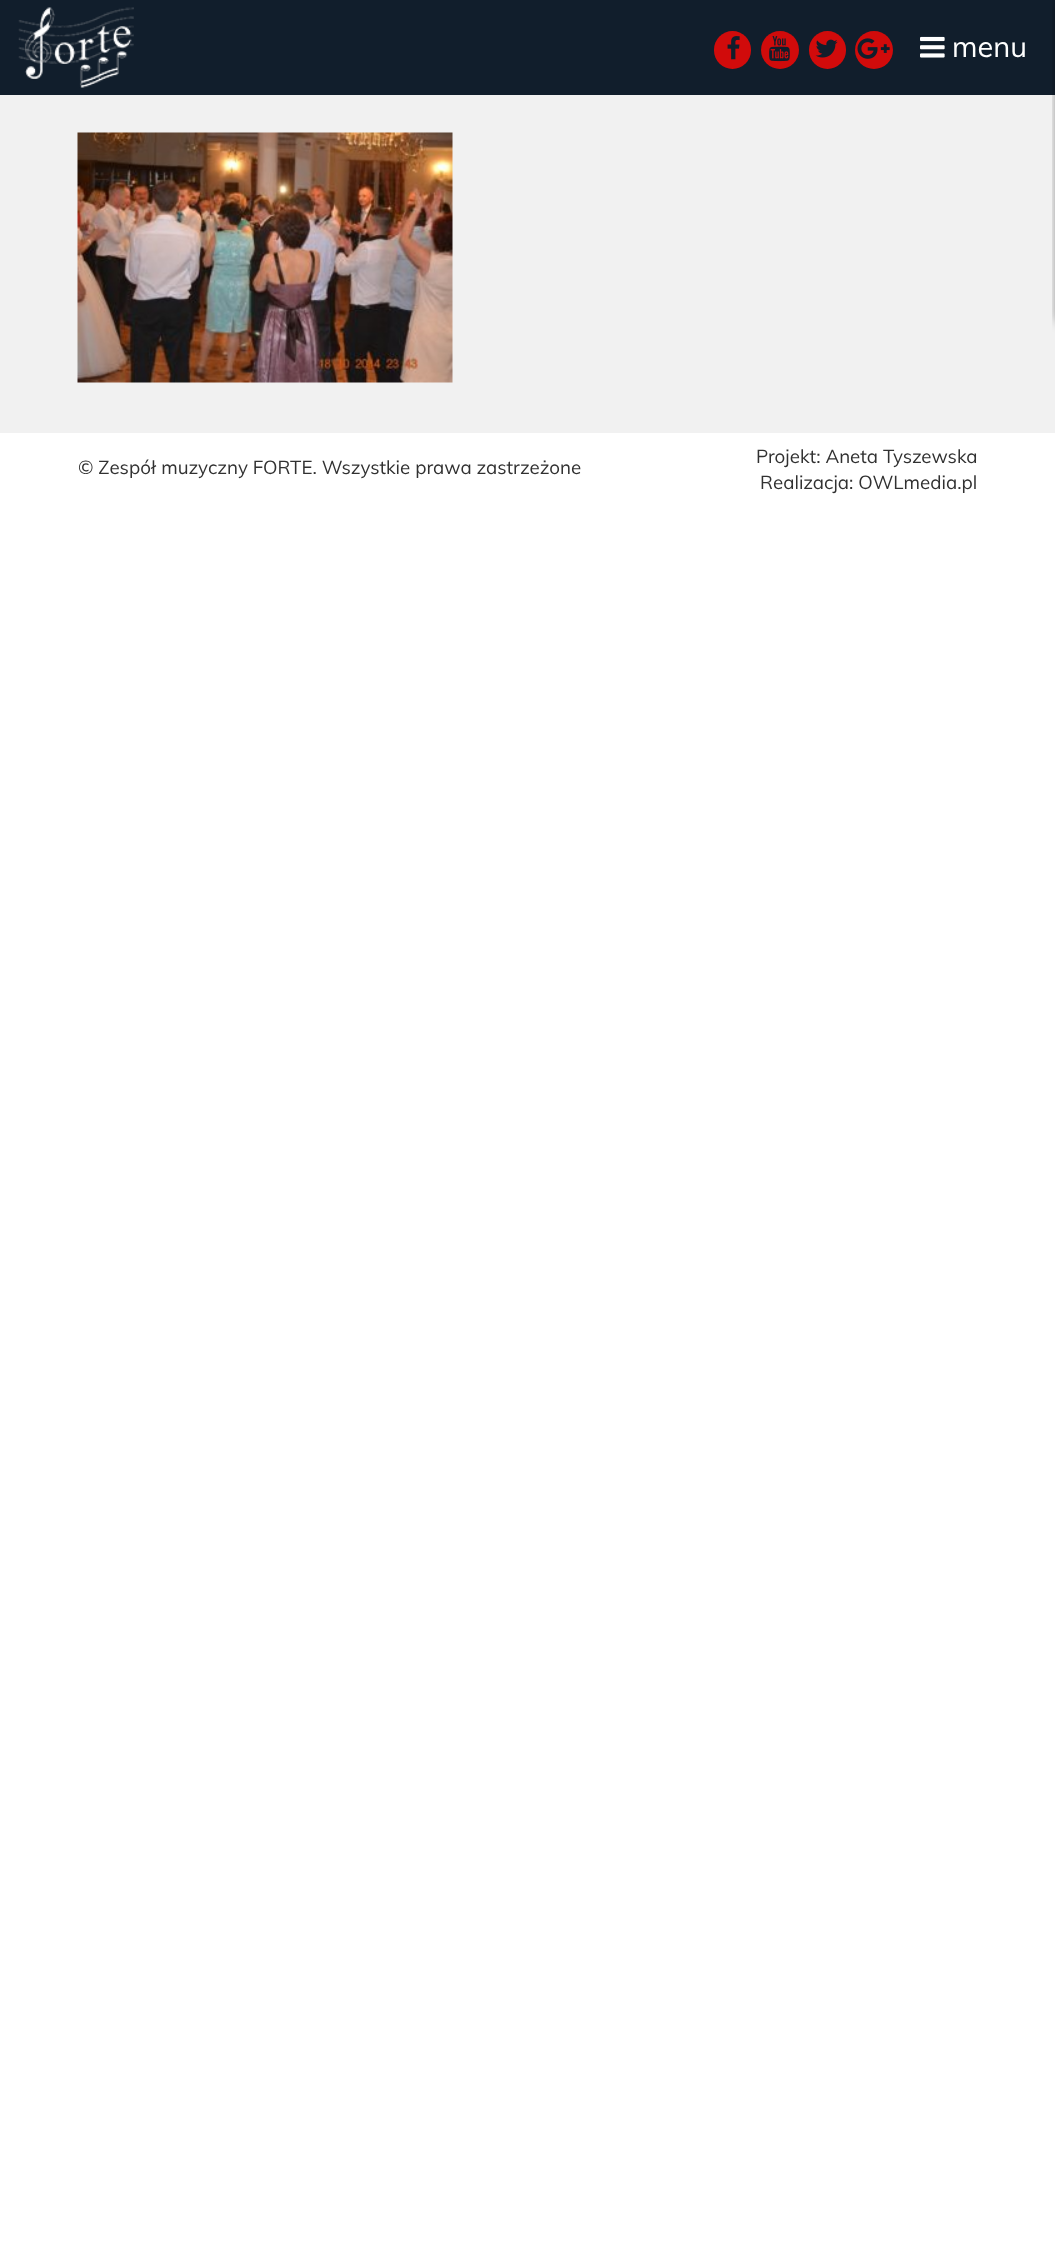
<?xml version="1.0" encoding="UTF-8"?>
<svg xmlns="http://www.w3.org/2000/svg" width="1055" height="2242">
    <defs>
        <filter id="blur1" x="-50%" y="-200%" width="200%" height="500%"><feGaussianBlur stdDeviation="6"/></filter>
    </defs>
    <rect width="100%" height="100%" fill="#FFFFFF"/>
    <rect x="0" y="0" width="1055" height="95" fill="#111E2C"/>
    <image x="18" y="7" width="116" height="81" href="img_01.png"/>
    <rect x="714" y="31" width="37" height="38" rx="18.5" fill="#D10B0B"/>
    <image x="727" y="36" width="13" height="24" href="img_02.png"/>
    <circle cx="780" cy="50" r="19" fill="#D10B0B"/>
    <image x="769" y="36" width="21" height="26" href="img_03.png"/>
    <rect x="809" y="31" width="37" height="38" rx="18.5" fill="#D10B0B"/>
    <image x="815" y="39" width="23" height="19" href="img_04.png"/>
    <circle cx="874" cy="50" r="19" fill="#D10B0B"/>
    <image x="857" y="38" width="33" height="21" href="img_05.png"/>
    <image x="920" y="36" width="25" height="22" href="img_06.png"/>
    <text x="952" y="57" font-family="Muli" font-size="29" fill="#FFFFFF">menu</text>
    <rect x="0" y="95" width="1055" height="338" fill="#F1F1F1"/>
    <rect x="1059" y="0" width="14" height="321" fill="#000000" fill-opacity="0.75" filter="url(#blur1)"/>
    <image x="77" y="132" width="376" height="251" href="img_07.png"/>
    <text x="78" y="474" font-family="Muli" font-size="18.75" fill="#313131">© Zespół muzyczny FORTE. Wszystkie prawa zastrzeżone</text>
    <text x="756" y="463" font-family="Muli" font-size="18.75" fill="#313131">Projekt: Aneta Tyszewska</text>
    <text x="760" y="489" font-family="Muli" font-size="18.75" fill="#313131">Realizacja: OWLmedia.pl</text>
</svg>
